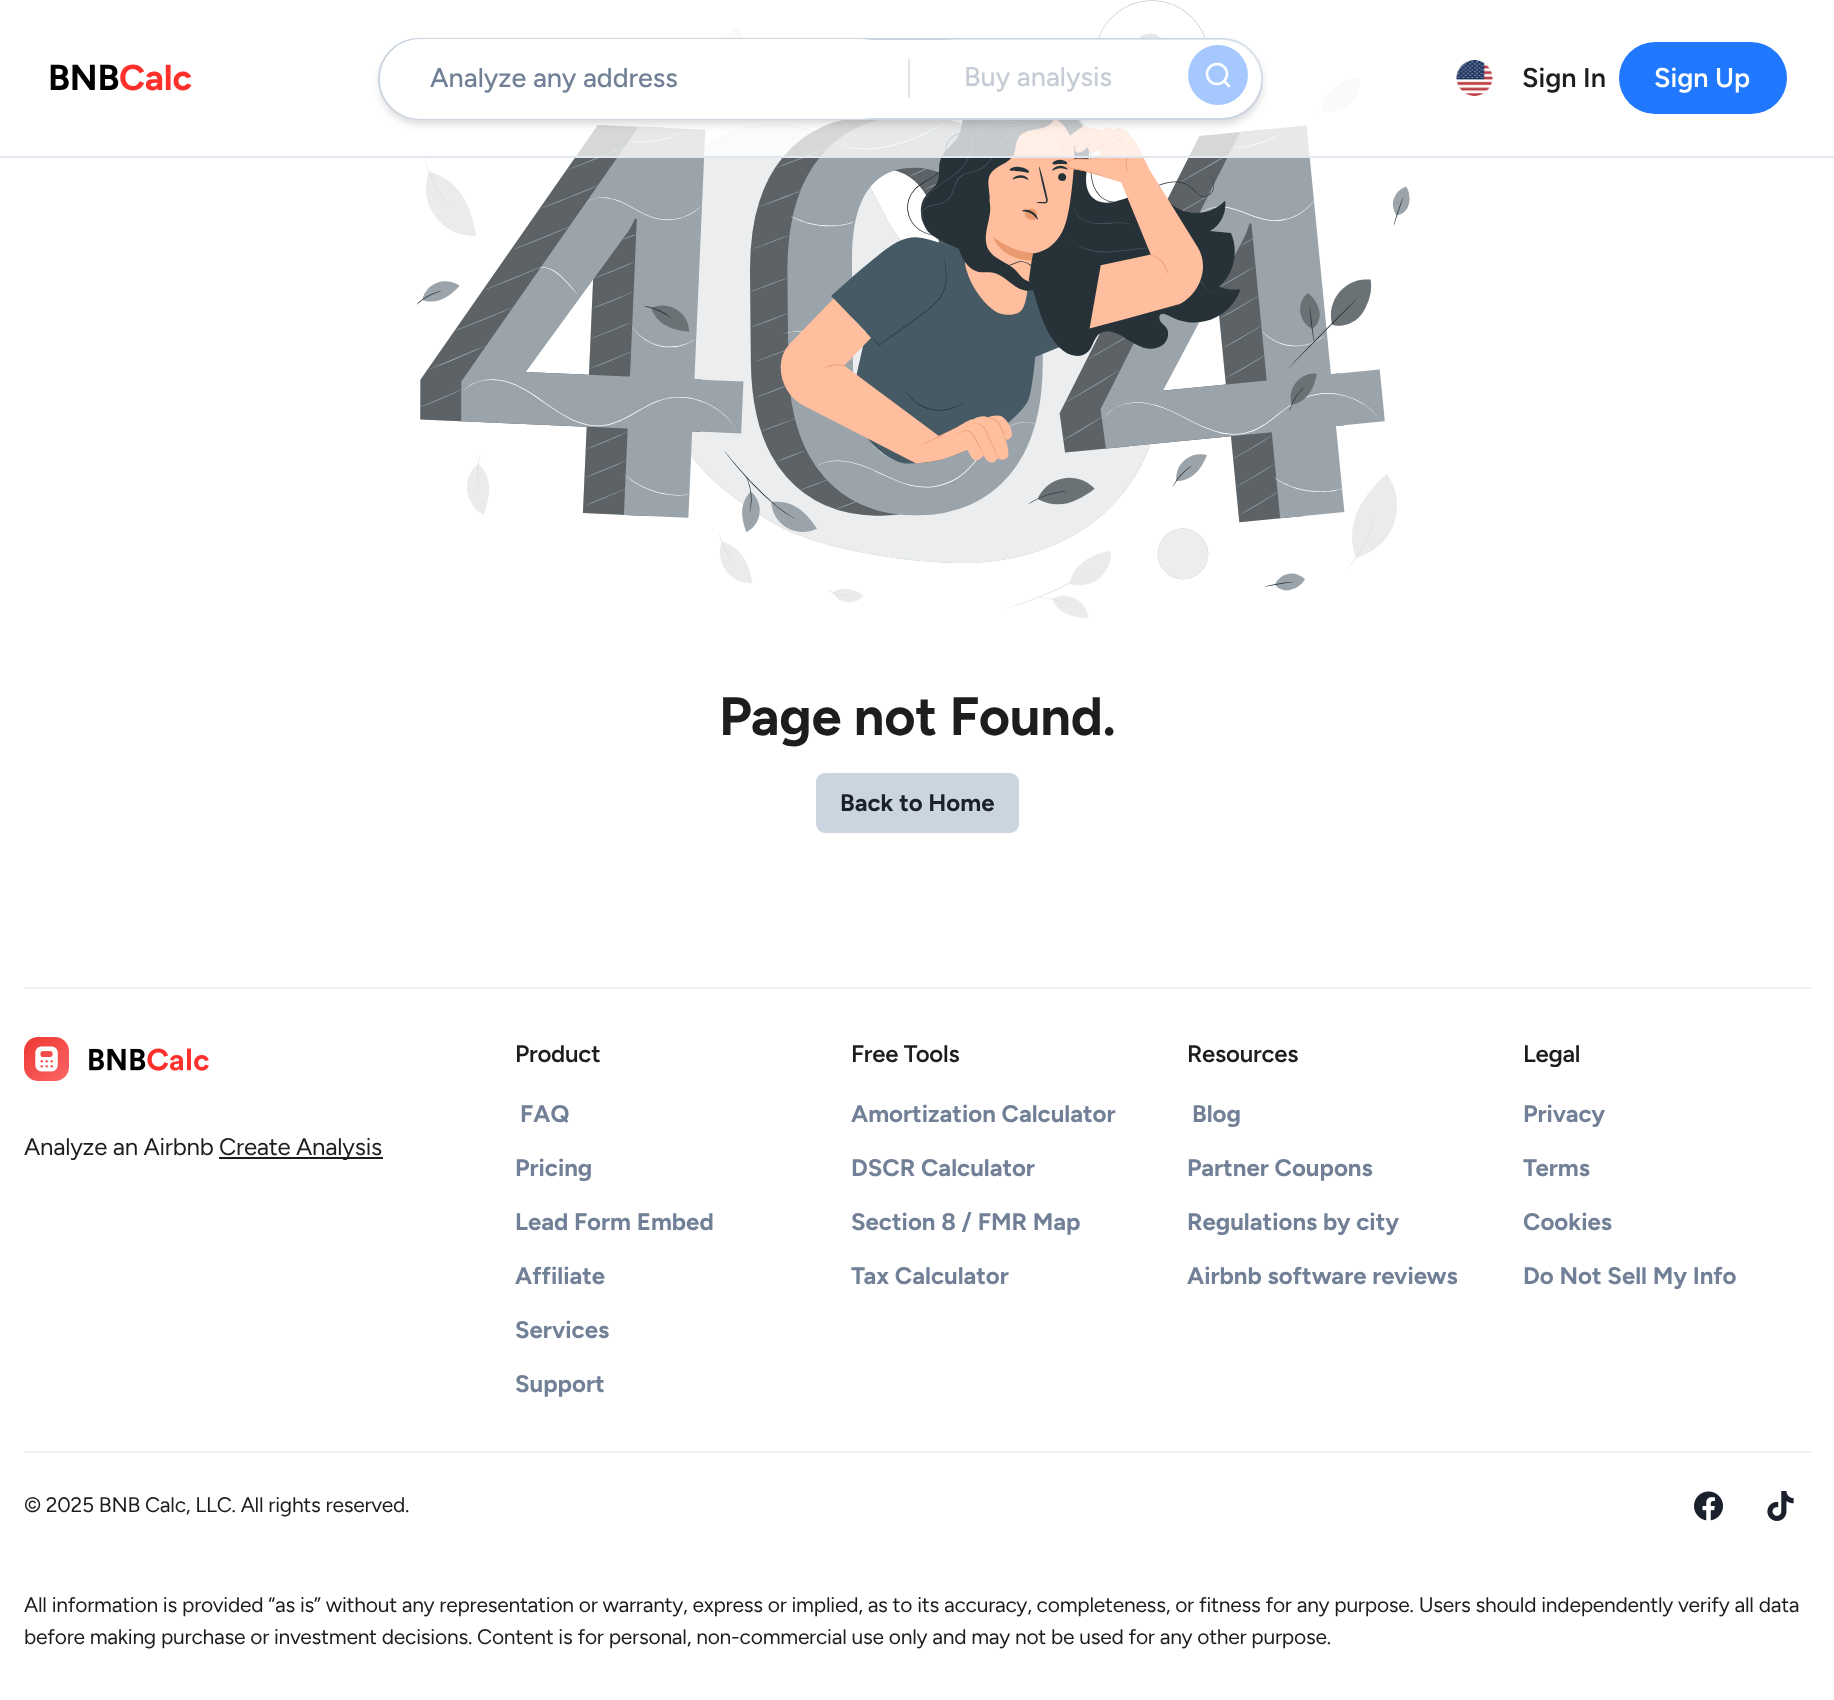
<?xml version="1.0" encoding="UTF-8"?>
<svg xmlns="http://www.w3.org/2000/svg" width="1834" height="1700">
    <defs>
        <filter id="blur1" x="-50%" y="-200%" width="200%" height="500%"><feGaussianBlur stdDeviation="4.5"/></filter>
        <filter id="blur2" x="-50%" y="-200%" width="200%" height="500%"><feGaussianBlur stdDeviation="3"/></filter>
    </defs>
    <rect width="100%" height="100%" fill="#FFFFFF"/>
    <image x="416" y="0" width="994" height="618" href="img_02.png"/>
    <rect x="576" y="0" width="784" height="156" fill="#FFFFFF" fill-opacity="0.75"/>
    <rect x="0" y="156" width="1834" height="2" fill="#E2E8F0"/>
    <text x="48" y="90" font-family="Figtree" font-size="36" font-weight="700" letter-spacing="-0.24" fill="#000000">BNB</text>
    <text x="119" y="90" font-family="Figtree" font-size="36" font-weight="700" letter-spacing="-0.24" fill="#FF302C">Calc</text>
    <rect x="380" y="45" width="882" height="80" rx="40" fill="#000000" fill-opacity="0.1" filter="url(#blur1)"/>
    <rect x="380" y="42" width="882" height="80" rx="40" fill="#000000" fill-opacity="0.06" filter="url(#blur2)"/>
    <rect x="379" y="39" width="883" height="80" rx="40" fill="#FFFFFF" stroke="#CBD5E0" stroke-width="2"/>
    <rect x="380" y="39" width="522" height="80" rx="40" fill="#FFFFFF"/>
    <text x="430" y="87" font-family="Figtree" font-size="27" font-weight="500" fill="#718096">Analyze any address</text>
    <rect x="908" y="59" width="2" height="39" fill="#E0E6EC"/>
    <rect x="915" y="39" width="347" height="77" rx="38.5" fill="#FFFFFF" fill-opacity="0.4"/>
    <text x="964" y="86" font-family="Figtree" font-size="27" font-weight="500" fill="#C6CCD5">Buy analysis</text>
    <circle cx="1218" cy="75" r="30" fill="#A5C9FF"/>
    <circle cx="1217" cy="74" r="10" fill="none" stroke="#FFFFFF" stroke-width="2.5"/>
    <path d="M 1229 86 L 1224 81" fill="none" stroke="#FFFFFF" stroke-width="2.5" stroke-linecap="round" stroke-linejoin="round"/>
    <image x="1456" y="60" width="37" height="36" href="img_01.png"/>
    <text x="1522" y="87" font-family="Figtree" font-size="27" font-weight="600" fill="#1D1D20">Sign In</text>
    <rect x="1619" y="42" width="168" height="72" rx="36" fill="#1F78FE"/>
    <text x="1654" y="87" font-family="Figtree" font-size="27" font-weight="600" fill="#FFFFFF">Sign Up</text>
    <text x="719" y="735" font-family="Figtree" font-size="54" font-weight="700" letter-spacing="-0.24" fill="#1D1D20">Page not Found.</text>
    <rect x="816" y="773" width="203" height="60" rx="9" fill="#CBD5E0"/>
    <text x="840" y="811" font-family="Figtree" font-size="24" font-weight="700" fill="#1A202C">Back to Home</text>
    <rect x="24" y="987" width="1787" height="2" fill="#EEF1F6"/>
    <image x="24" y="1037" width="185" height="44" href="img_03.png"/>
    <text x="24" y="1155" font-family="Figtree" font-size="24" letter-spacing="-0.24" fill="#1D1D20">Analyze an Airbnb</text>
    <rect x="219" y="1157" width="164" height="2" fill="#1D1D20"/>
    <text x="219" y="1155" font-family="Figtree" font-size="24" letter-spacing="-0.24" fill="#1D1D20">Create Analysis</text>
    <text x="515" y="1062" font-family="Figtree" font-size="24" font-weight="600" letter-spacing="-0.24" fill="#1D1D20">Product</text>
    <text x="520" y="1122" font-family="Figtree" font-size="24" font-weight="700" fill="#718096">FAQ</text>
    <text x="515" y="1176" font-family="Figtree" font-size="24" font-weight="700" fill="#718096">Pricing</text>
    <text x="515" y="1230" font-family="Figtree" font-size="24" font-weight="700" fill="#718096">Lead Form Embed</text>
    <text x="515" y="1284" font-family="Figtree" font-size="24" font-weight="700" fill="#718096">Affiliate</text>
    <text x="515" y="1338" font-family="Figtree" font-size="24" font-weight="700" fill="#718096">Services</text>
    <text x="515" y="1392" font-family="Figtree" font-size="24" font-weight="700" fill="#718096">Support</text>
    <text x="851" y="1062" font-family="Figtree" font-size="24" font-weight="600" letter-spacing="-0.24" fill="#1D1D20">Free Tools</text>
    <text x="851" y="1122" font-family="Figtree" font-size="24" font-weight="700" fill="#718096">Amortization Calculator</text>
    <text x="851" y="1176" font-family="Figtree" font-size="24" font-weight="700" fill="#718096">DSCR Calculator</text>
    <text x="851" y="1230" font-family="Figtree" font-size="24" font-weight="700" fill="#718096">Section 8 / FMR Map</text>
    <text x="851" y="1284" font-family="Figtree" font-size="24" font-weight="700" fill="#718096">Tax Calculator</text>
    <text x="1187" y="1062" font-family="Figtree" font-size="24" font-weight="600" letter-spacing="-0.24" fill="#1D1D20">Resources</text>
    <text x="1192" y="1122" font-family="Figtree" font-size="24" font-weight="700" fill="#718096">Blog</text>
    <text x="1187" y="1176" font-family="Figtree" font-size="24" font-weight="700" fill="#718096">Partner Coupons</text>
    <text x="1187" y="1230" font-family="Figtree" font-size="24" font-weight="700" fill="#718096">Regulations by city</text>
    <text x="1187" y="1284" font-family="Figtree" font-size="24" font-weight="700" fill="#718096">Airbnb software reviews</text>
    <text x="1523" y="1062" font-family="Figtree" font-size="24" font-weight="600" letter-spacing="-0.24" fill="#1D1D20">Legal</text>
    <text x="1523" y="1122" font-family="Figtree" font-size="24" font-weight="700" fill="#718096">Privacy</text>
    <text x="1523" y="1176" font-family="Figtree" font-size="24" font-weight="700" fill="#718096">Terms</text>
    <text x="1523" y="1230" font-family="Figtree" font-size="24" font-weight="700" fill="#718096">Cookies</text>
    <text x="1523" y="1284" font-family="Figtree" font-size="24" font-weight="700" fill="#718096">Do Not Sell My Info</text>
    <rect x="24" y="1451" width="1787" height="2" fill="#EEF1F6"/>
    <text x="24" y="1512" font-family="Figtree" font-size="21" letter-spacing="-0.24" fill="#1D1D20">© 2025 BNB Calc, LLC. All rights reserved.</text>
    <image x="1694" y="1491" width="29" height="30" href="img_04.png"/>
    <image x="1767" y="1491" width="27" height="30" href="img_05.png"/>
    <text font-family="Figtree" font-size="21" letter-spacing="-0.24" fill="#1D1D20">
        <tspan x="24" y="1612">All information is provided “as is” without any representation or warranty, express or implied, as to its accuracy, completeness, or fitness for any purpose. Users should independently verify all data</tspan>
        <tspan x="24" y="1644">before making purchase or investment decisions. Content is for personal, non-commercial use only and may not be used for any other purpose.</tspan>
    </text>
</svg>
